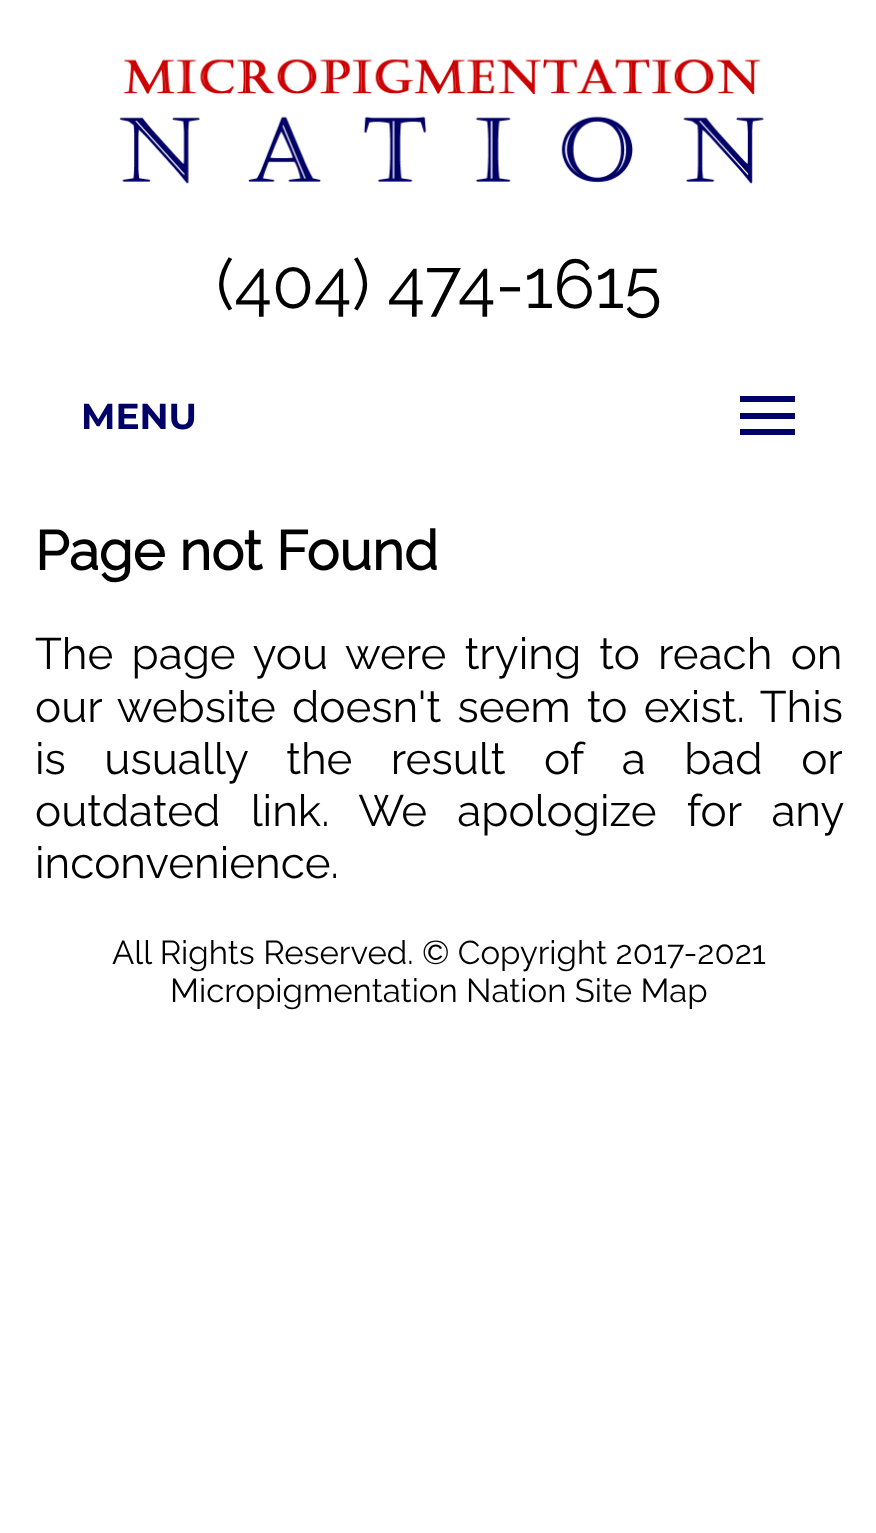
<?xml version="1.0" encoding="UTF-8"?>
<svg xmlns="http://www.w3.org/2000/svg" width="876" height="1533">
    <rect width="100%" height="100%" fill="#FFFFFF"/>
    <image x="119" y="59" width="645" height="125" href="img_01.png"/>
    <text x="216" y="308" font-family="Raleway" font-size="68.75" font-weight="100" fill="#000000">(404) 474-1615</text>
    <rect x="740" y="396" width="55" height="6" fill="#000066"/>
    <text x="81" y="429" font-family="Montserrat" font-size="36" font-weight="700" fill="#000066">MENU</text>
    <rect x="740" y="413" width="55" height="6" fill="#000066"/>
    <rect x="740" y="429" width="55" height="6" fill="#000066"/>
    <text x="35" y="570" font-family="Raleway" font-size="55" font-weight="700" fill="#000000">Page not Found</text>
    <text font-family="Raleway" font-size="44" font-weight="100" fill="#000000">
        <tspan x="35" y="669" word-spacing="7">The page you were trying to reach on</tspan>
        <tspan x="35" y="722" word-spacing="5">our website doesn't seem to exist. This</tspan>
        <tspan x="35" y="774" word-spacing="27.25">is usually the result of a bad or</tspan>
        <tspan x="35" y="826" word-spacing="19">outdated link. We apologize for any</tspan>
        <tspan x="35" y="878">inconvenience.</tspan>
    </text>
    <text x="112" y="964" font-family="Raleway" font-size="33" font-weight="100" fill="#000000">All Rights Reserved. © Copyright 2017-2021</text>
    <text x="170" y="1002" font-family="Raleway" font-size="33" font-weight="100" fill="#000000">Micropigmentation Nation Site Map</text>
</svg>
